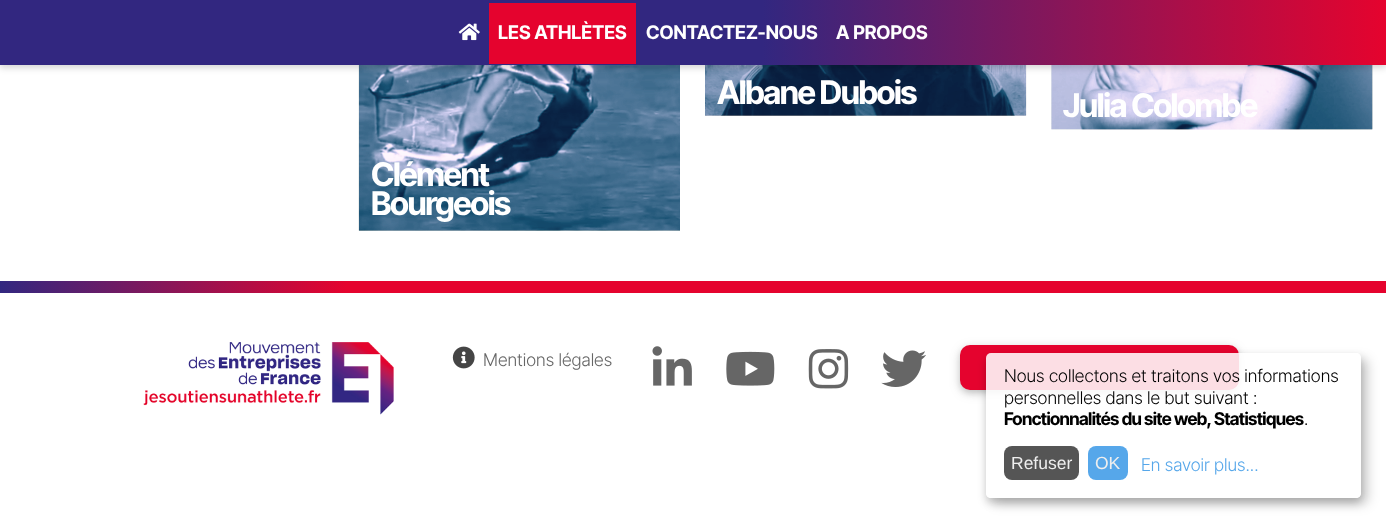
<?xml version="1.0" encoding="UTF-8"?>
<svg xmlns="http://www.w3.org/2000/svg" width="1386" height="522">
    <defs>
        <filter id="blur1" x="-50%" y="-200%" width="200%" height="500%"><feGaussianBlur stdDeviation="3"/></filter>
        <linearGradient id="g1" gradientUnits="userSpaceOnUse" x1="0" y1="33" x2="1386" y2="32"><stop offset="0.55" stop-color="#322780"/><stop offset="1" stop-color="#E5032E"/></linearGradient>
        <linearGradient id="g2" gradientUnits="userSpaceOnUse" x1="1386" y1="287" x2="0" y2="287"><stop offset="0.75" stop-color="#E5032E"/><stop offset="1" stop-color="#322780"/></linearGradient>
        <filter id="blur2" x="-50%" y="-200%" width="200%" height="500%"><feGaussianBlur stdDeviation="6"/></filter>
        <clipPath id="clip1"><path d="M 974 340 H 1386 V 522 H 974 Z M 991 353 H 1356 C 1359 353 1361 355 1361 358 V 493 C 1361 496 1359 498 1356 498 H 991 C 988 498 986 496 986 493 V 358 C 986 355 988 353 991 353 Z" clip-rule="evenodd"/></clipPath>
        <clipPath id="clip2"><path d="M 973 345 H 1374 V 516 H 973 Z M 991 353 H 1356 C 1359 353 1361 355 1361 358 V 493 C 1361 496 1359 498 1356 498 H 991 C 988 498 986 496 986 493 V 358 C 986 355 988 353 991 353 Z" clip-rule="evenodd"/></clipPath>
        <filter id="blur3" x="-50%" y="-200%" width="200%" height="500%"><feGaussianBlur stdDeviation="4"/></filter>
    </defs>
    <rect width="100%" height="100%" fill="#FFFFFF"/>
    <image x="705" y="65" width="322" height="51" href="img_02.png"/>
    <image x="1051" y="65" width="322" height="65" href="img_03.png"/>
    <image x="358" y="65" width="322" height="166" href="img_04.png"/>
    <rect x="0" y="3" width="1386" height="65" fill="#000000" fill-opacity="0.16" filter="url(#blur1)"/>
    <rect x="0" y="0" width="1386" height="65" fill="url(#g1)"/>
    <image x="458" y="23" width="22" height="18" href="img_01.png"/>
    <rect x="489" y="3" width="147" height="61" fill="#E5032E"/>
    <text x="498" y="39" font-family="Inter Tight" font-size="18.75" font-weight="700" fill="#FFFFFF">LES ATHLÈTES</text>
    <text x="646" y="39" font-family="Inter Tight" font-size="18.75" font-weight="700" fill="#FFFFFF">CONTACTEZ-NOUS</text>
    <text x="836" y="39" font-family="Inter Tight" font-size="18.75" font-weight="700" fill="#FFFFFF">A PROPOS</text>
    <text x="717" y="104" font-family="Inter Tight" font-size="32.5" font-weight="700" letter-spacing="-1.4" fill="#FFFFFF">Albane Dubois</text>
    <text x="1063" y="117" font-family="Inter Tight" font-size="32.5" font-weight="700" letter-spacing="-1.4" fill="#FFFFFF">Julia Colombe</text>
    <text font-family="Inter Tight" font-size="32.5" font-weight="700" letter-spacing="-1.4" fill="#FFFFFF">
        <tspan x="371" y="186">Clément</tspan>
        <tspan x="371" y="215">Bourgeois</tspan>
    </text>
    <rect x="0" y="281" width="1386" height="12" fill="url(#g2)"/>
    <image x="143" y="342" width="251" height="73" href="img_05.png"/>
    <image x="452" y="346" width="23" height="23" href="img_06.png"/>
    <text x="483" y="366" font-family="Inter Tight" font-size="17.5" font-weight="300" fill="#666666">Mentions légales</text>
    <image x="652" y="346" width="40" height="40" href="img_07.png"/>
    <image x="726" y="351" width="49" height="35" href="img_08.png"/>
    <image x="808" y="349" width="41" height="40" href="img_09.png"/>
    <image x="881" y="350" width="45" height="37" href="img_10.png"/>
    <rect x="960" y="348" width="279" height="45" rx="10" fill="#000000" fill-opacity="0.12" filter="url(#blur2)"/>
    <rect x="960" y="348" width="279" height="45" rx="10" fill="#000000" fill-opacity="0.16" filter="url(#blur1)"/>
    <rect x="960" y="345" width="279" height="45" rx="10" fill="#E5032E"/>
    <g clip-path="url(#clip1)">
        <rect x="993" y="359" width="375" height="145" rx="5" fill="#000000" fill-opacity="0.19" filter="url(#blur2)"/>
    </g>
    <g clip-path="url(#clip2)">
        <rect x="986" y="358" width="375" height="145" rx="5" fill="#000000" fill-opacity="0.2" filter="url(#blur3)"/>
    </g>
    <rect x="986" y="353" width="375" height="145" rx="5" fill="#FFFFFF" fill-opacity="0.87"/>
    <text font-family="Inter Tight" font-size="17.5" font-weight="300" fill="#000000">
        <tspan x="1004" y="382">Nous collectons et traitons vos informations</tspan>
        <tspan x="1004" y="404">personnelles dans le but suivant :</tspan>
    </text>
    <text x="1004" y="425" font-family="Inter Tight" font-size="17.5" font-weight="700" letter-spacing="-0.6" fill="#000000">Fonctionnalités du site web, Statistiques</text>
    <text x="1304" y="425" font-family="Inter Tight" font-size="17.5" font-weight="300" fill="#000000">.</text>
    <rect x="1004" y="446" width="75" height="34" rx="8" fill="#555555"/>
    <text x="1011" y="469" font-family="Liberation Sans" font-size="17.5" fill="#EEEEEE">Refuser</text>
    <rect x="1088" y="446" width="40" height="34" rx="8" fill="#56A7EA"/>
    <text x="1095" y="469" font-family="Liberation Sans" font-size="17.5" fill="#EEEEEE">OK</text>
    <text x="1141" y="471" font-family="Inter Tight" font-size="17.5" font-weight="300" fill="#56A7EA">En savoir plus...</text>
</svg>
